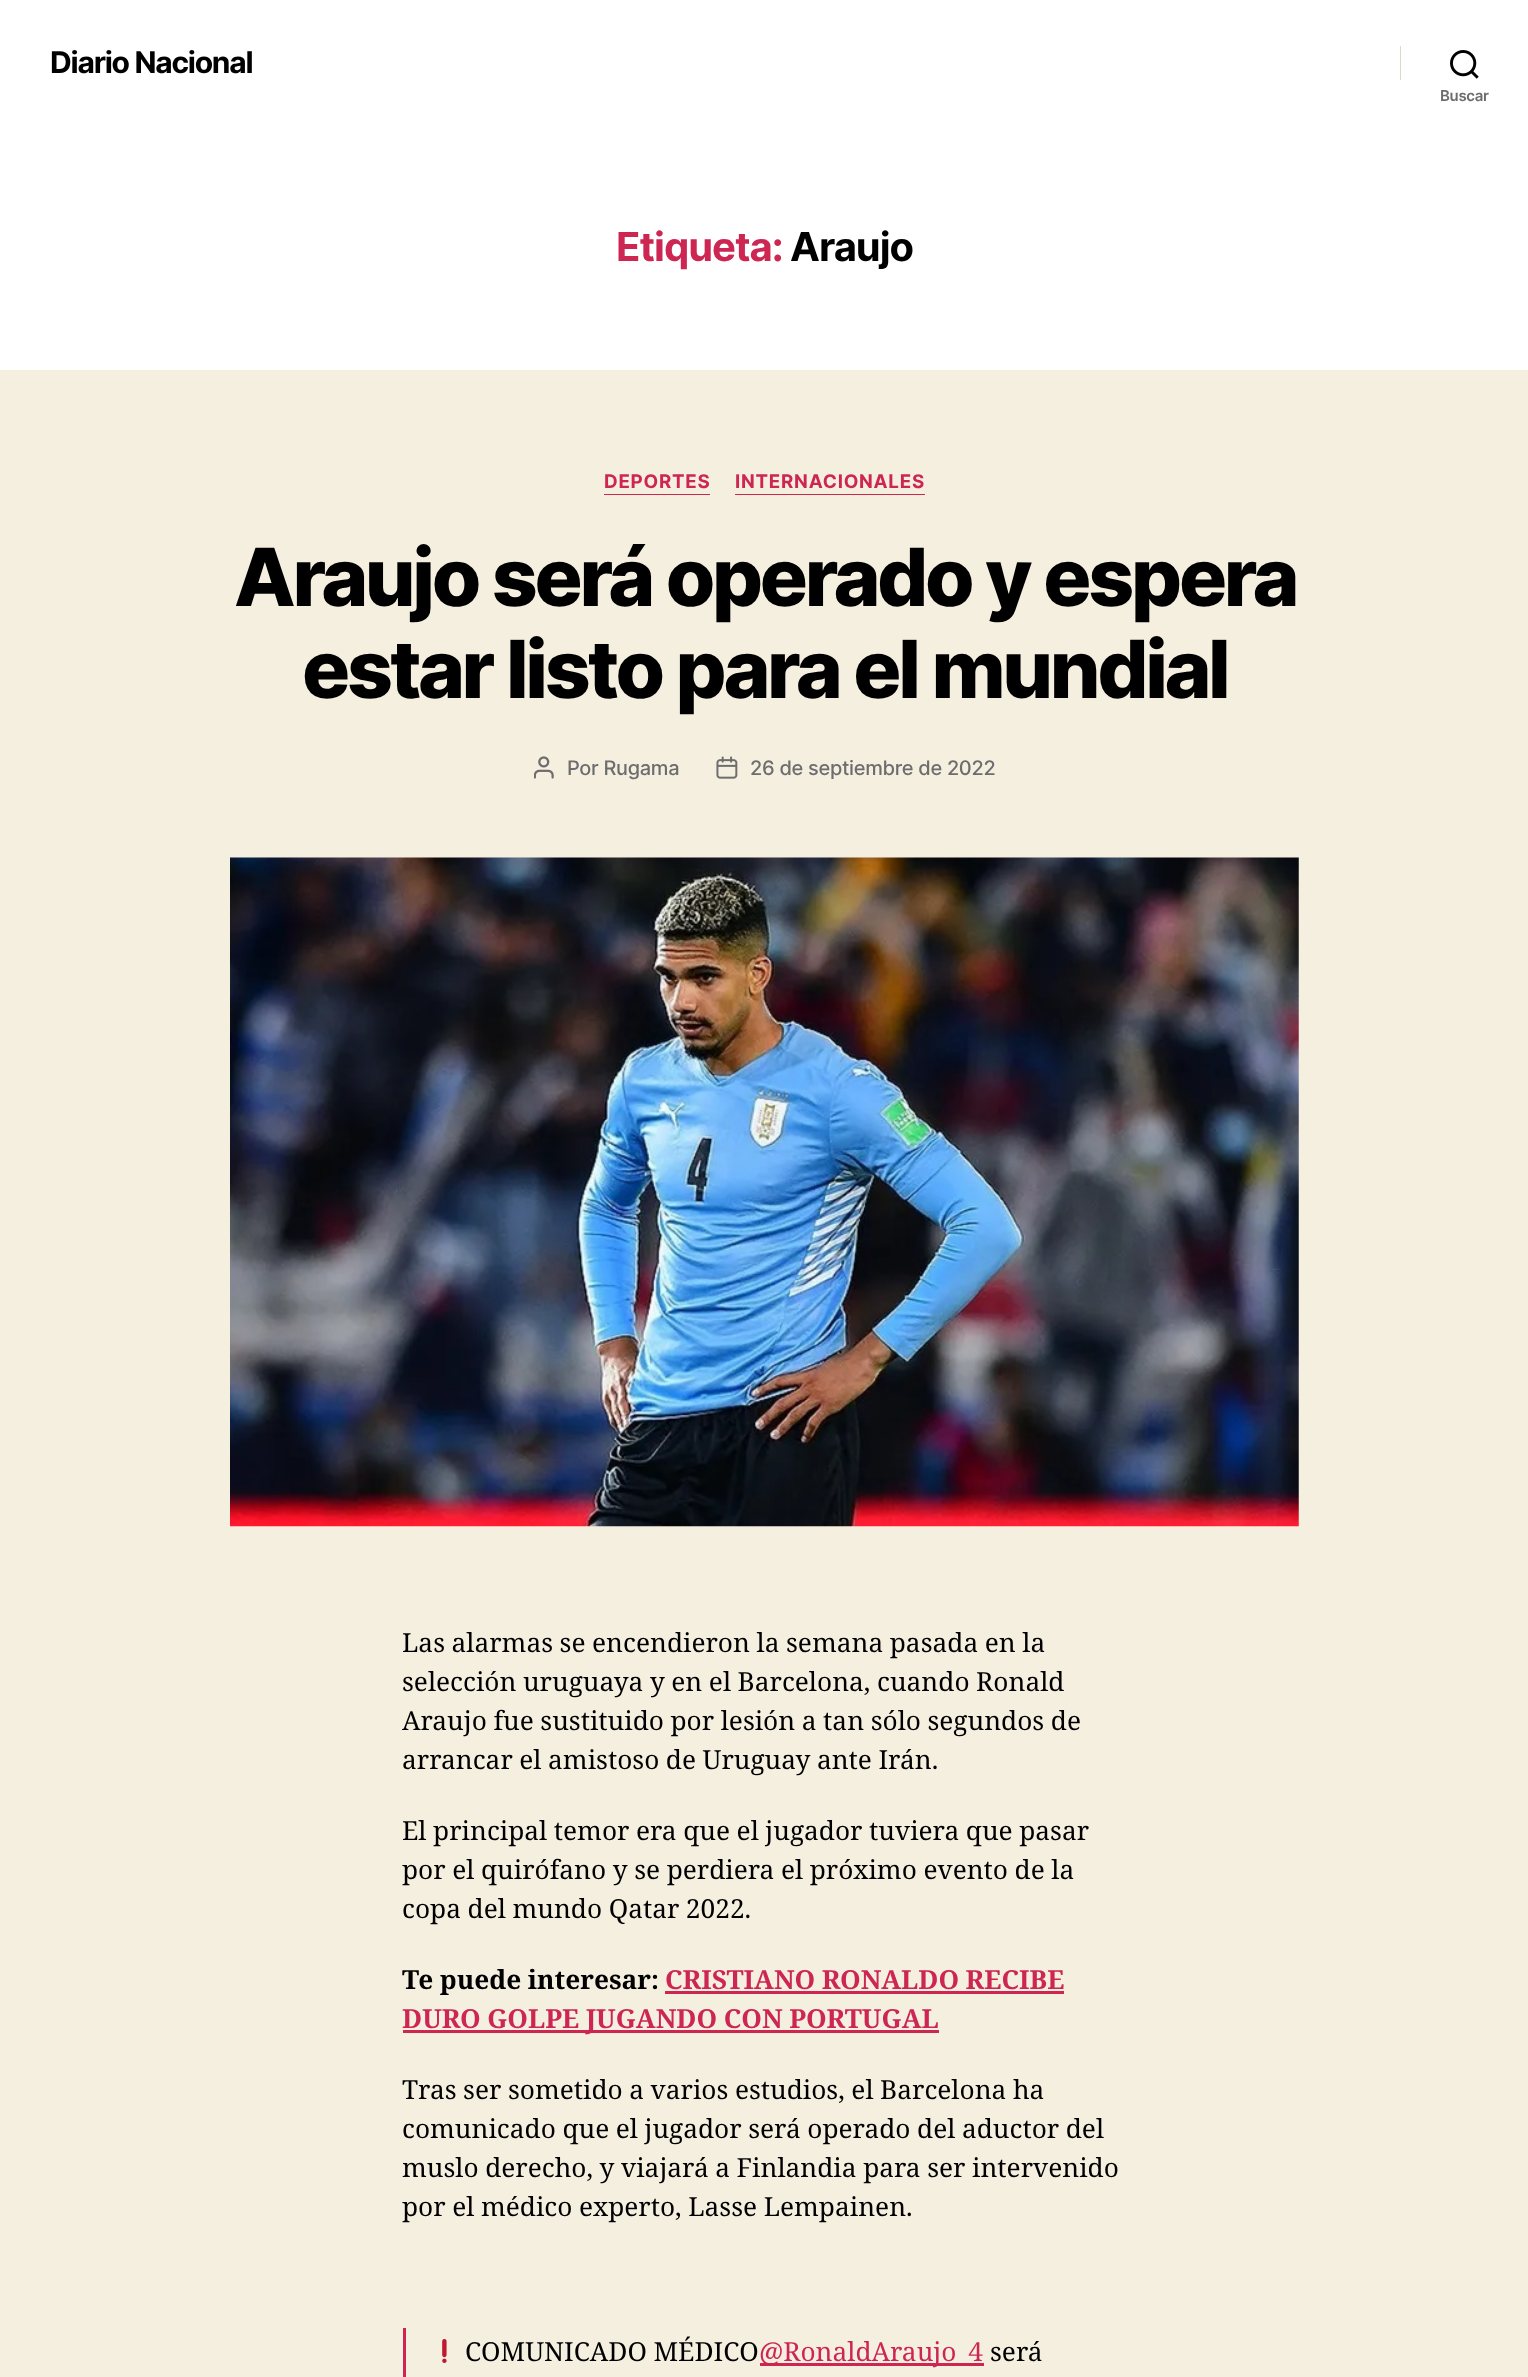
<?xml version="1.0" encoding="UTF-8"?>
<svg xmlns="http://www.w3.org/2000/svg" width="1528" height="2377">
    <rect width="100%" height="100%" fill="#F5EFE0"/>
    <rect x="0" y="0" width="1528" height="370" fill="#FFFFFF"/>
    <text x="50" y="73" font-family="Inter" font-size="30" font-weight="700" letter-spacing="-1.25" fill="#000000">Diario Nacional</text>
    <rect x="1400" y="46" width="1" height="34" fill="#DCD7CA"/>
    <image x="1450" y="50" width="29" height="29" href="img_01.png"/>
    <text x="1440" y="101" font-family="Inter" font-size="15" font-weight="600" letter-spacing="-0.3" fill="#6D6D6D">Buscar</text>
    <text x="616" y="261" font-family="Inter" font-size="40" font-weight="700" letter-spacing="-1" fill="#CD2653">Etiqueta:</text>
    <text x="790" y="261" font-family="Inter" font-size="40" font-weight="700" letter-spacing="-1" fill="#000000">Araujo</text>
    <rect x="604" y="494" width="106" height="1" fill="#CD2653"/>
    <text x="604" y="488" font-family="Inter" font-size="18.75" font-weight="700" letter-spacing="0.75" fill="#CD2653">DEPORTES</text>
    <rect x="735" y="494" width="190" height="1" fill="#CD2653"/>
    <text x="735" y="488" font-family="Inter" font-size="18.75" font-weight="700" letter-spacing="0.75" fill="#CD2653">INTERNACIONALES</text>
    <text x="234" y="606" font-family="Inter" font-size="80" font-weight="800" letter-spacing="-3.3" fill="#000000">Araujo será operado y espera</text>
    <text x="302" y="698" font-family="Inter" font-size="80" font-weight="800" letter-spacing="-3.3" fill="#000000">estar listo para el mundial</text>
    <image x="534" y="756" width="20" height="23" href="img_02.png"/>
    <text x="567" y="775" font-family="Inter" font-size="20" font-weight="500" letter-spacing="-0.3" fill="#6D6D6D">Por Rugama</text>
    <image x="716" y="756" width="22" height="23" href="img_03.png"/>
    <text x="750" y="775" font-family="Inter" font-size="20" font-weight="500" letter-spacing="-0.3" fill="#6D6D6D">26 de septiembre de 2022</text>
    <image x="230" y="857" width="1069" height="670" href="img_04.png"/>
    <text font-family="Noto Serif" font-size="26.25" fill="#000000">
        <tspan x="402" y="1652" word-spacing="-0.25">Las alarmas se encendieron la semana pasada en la</tspan>
        <tspan x="402" y="1691" word-spacing="-0.25">selección uruguaya y en el Barcelona, cuando Ronald</tspan>
        <tspan x="402" y="1730" word-spacing="-0.25">Araujo fue sustituido por lesión a tan sólo segundos de</tspan>
        <tspan x="402" y="1769" word-spacing="-0.25">arrancar el amistoso de Uruguay ante Irán.</tspan>
    </text>
    <text font-family="Noto Serif" font-size="26.25" fill="#000000">
        <tspan x="402" y="1840" word-spacing="-0.25">El principal temor era que el jugador tuviera que pasar</tspan>
        <tspan x="402" y="1879" word-spacing="-0.25">por el quirófano y se perdiera el próximo evento de la</tspan>
        <tspan x="402" y="1918" word-spacing="-0.25">copa del mundo Qatar 2022.</tspan>
    </text>
    <text x="402" y="1989" word-spacing="-0.25" font-family="Noto Serif" font-size="26.25" font-weight="700" fill="#000000">Te puede interesar:</text>
    <text x="665" y="1989" word-spacing="-0.25" font-family="Noto Serif" font-size="26.25" font-weight="700" fill="#CD2653">CRISTIANO RONALDO RECIBE</text>
    <rect x="665" y="1991" width="399" height="3" fill="#CD2653"/>
    <rect x="403" y="2030" width="536" height="3" fill="#CD2653"/>
    <text x="402" y="2028" word-spacing="-0.25" font-family="Noto Serif" font-size="26.25" font-weight="700" fill="#CD2653">DURO GOLPE JUGANDO CON PORTUGAL</text>
    <text font-family="Noto Serif" font-size="26.25" fill="#000000">
        <tspan x="402" y="2099" word-spacing="-0.25">Tras ser sometido a varios estudios, el Barcelona ha</tspan>
        <tspan x="402" y="2138" word-spacing="-0.25">comunicado que el jugador será operado del aductor del</tspan>
        <tspan x="402" y="2177" word-spacing="-0.25">muslo derecho, y viajará a Finlandia para ser intervenido</tspan>
        <tspan x="402" y="2216" word-spacing="-0.25">por el médico experto, Lasse Lempainen.</tspan>
    </text>
    <rect x="403" y="2328" width="3" height="49" fill="#CD2653"/>
    <image x="442" y="2339" width="5" height="24" href="img_05.png"/>
    <text x="465" y="2361" word-spacing="-0.25" font-family="Noto Serif" font-size="26.25" fill="#000000">COMUNICADO MÉDICO</text>
    <rect x="760" y="2363" width="224" height="3" fill="#CD2653"/>
    <text x="759" y="2361" font-family="Noto Serif" font-size="26.25" fill="#CD2653">@RonaldAraujo_4</text>
    <text x="990" y="2361" font-family="Noto Serif" font-size="26.25" fill="#000000">será</text>
</svg>
